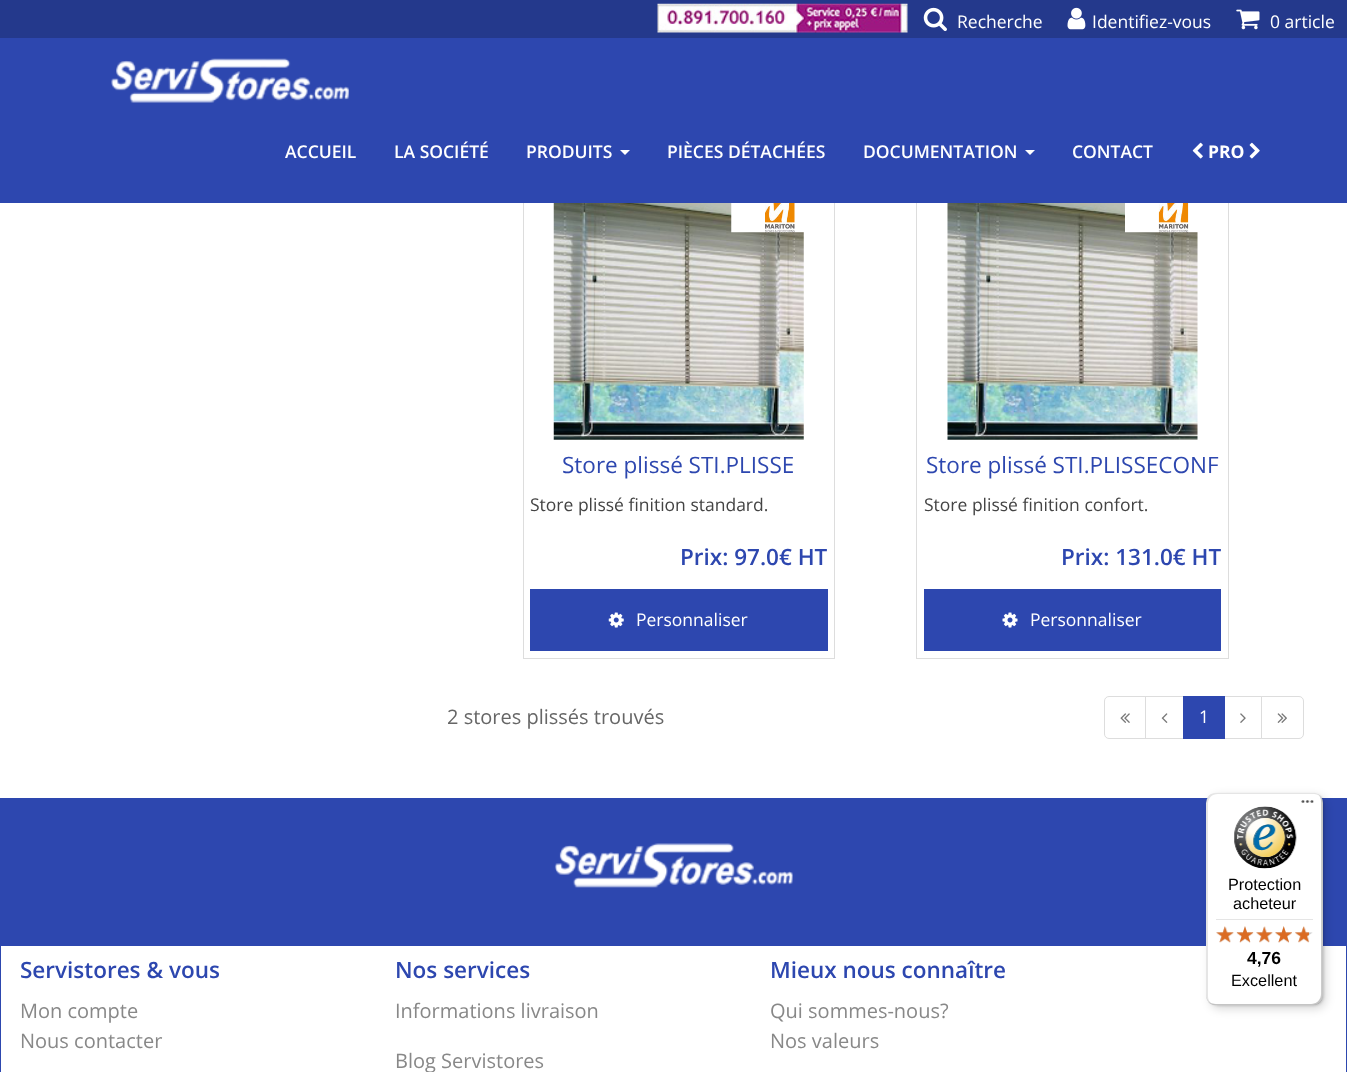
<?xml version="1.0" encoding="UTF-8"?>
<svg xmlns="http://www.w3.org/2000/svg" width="1347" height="1072">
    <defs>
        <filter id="blur1" x="-50%" y="-200%" width="200%" height="500%"><feGaussianBlur stdDeviation="5"/></filter>
        <filter id="blur2" x="-50%" y="-200%" width="200%" height="500%"><feGaussianBlur stdDeviation="1"/></filter>
    </defs>
    <rect width="100%" height="100%" fill="#FFFFFF"/>
    <rect x="0" y="0" width="1347" height="38" fill="#24398C"/>
    <image x="657" y="3" width="251" height="30" href="img_01.png"/>
    <image x="923" y="7" width="24" height="25" href="img_02.png"/>
    <text x="957" y="28" font-family="Open Sans" font-size="17.5" fill="#FFFFFF">Recherche</text>
    <image x="1067" y="7" width="19" height="23" href="img_03.png"/>
    <text x="1092" y="28" font-family="Open Sans" font-size="17.5" fill="#FFFFFF">Identifiez-vous</text>
    <image x="1236" y="9" width="24" height="21" href="img_04.png"/>
    <text x="1270" y="28" font-family="Open Sans" font-size="17.5" fill="#FFFFFF">0 article</text>
    <image x="553" y="203" width="251" height="237" href="img_08.png"/>
    <image x="731" y="203" width="73" height="30" href="img_09.png"/>
    <rect x="523.5" y="189.5" width="311" height="469" fill="none" stroke="#DDDDDD"/>
    <image x="947" y="203" width="251" height="237" href="img_11.png"/>
    <image x="1125" y="203" width="73" height="30" href="img_12.png"/>
    <rect x="916.5" y="189.5" width="312" height="469" fill="none" stroke="#DDDDDD"/>
    <rect x="0" y="38" width="1347" height="165" fill="#2D47AF"/>
    <image x="111" y="58" width="238" height="45" href="img_05.png"/>
    <text x="285" y="158" font-family="Open Sans" font-size="17.5" font-weight="600" fill="#FFFFFF">ACCUEIL</text>
    <text x="394" y="158" font-family="Open Sans" font-size="17.5" font-weight="600" fill="#FFFFFF">LA SOCIÉTÉ</text>
    <text x="526" y="158" font-family="Open Sans" font-size="17.5" font-weight="600" fill="#FFFFFF">PRODUITS</text>
    <path d="M 620 150 H 630 L 625 155 Z" fill="#FFFFFF"/>
    <text x="667" y="158" font-family="Open Sans" font-size="17.5" font-weight="600" fill="#FFFFFF">PIÈCES DÉTACHÉES</text>
    <text x="863" y="158" font-family="Open Sans" font-size="17.5" font-weight="600" fill="#FFFFFF">DOCUMENTATION</text>
    <path d="M 1025 150 H 1035 L 1030 155 Z" fill="#FFFFFF"/>
    <text x="1072" y="158" font-family="Open Sans" font-size="17.5" font-weight="600" fill="#FFFFFF">CONTACT</text>
    <image x="1192" y="142" width="11" height="17" href="img_06.png"/>
    <text x="1208" y="158" font-family="Open Sans" font-size="17.5" font-weight="700" fill="#FFFFFF">PRO</text>
    <image x="1249" y="142" width="11" height="17" href="img_07.png"/>
    <text x="562" y="473" font-family="Open Sans" font-size="22.5" fill="#2D47AF">Store plissé STI.PLISSE</text>
    <text x="530" y="511" font-family="Open Sans" font-size="17.5" fill="#444444">Store plissé finition standard.</text>
    <text x="680" y="565" font-family="Open Sans" font-size="22.5" font-weight="600" fill="#2D47AF">Prix: 97.0€ HT</text>
    <rect x="530" y="589" width="298" height="62" fill="#2D47AF"/>
    <image x="608" y="612" width="16" height="16" href="img_10.png"/>
    <text x="636" y="626" font-family="Open Sans" font-size="17.5" fill="#FFFFFF">Personnaliser</text>
    <text x="926" y="473" font-family="Open Sans" font-size="22.5" fill="#2D47AF">Store plissé STI.PLISSECONF</text>
    <text x="924" y="511" font-family="Open Sans" font-size="17.5" fill="#444444">Store plissé finition confort.</text>
    <text x="1061" y="565" font-family="Open Sans" font-size="22.5" font-weight="600" fill="#2D47AF">Prix: 131.0€ HT</text>
    <rect x="924" y="589" width="297" height="62" fill="#2D47AF"/>
    <image x="1002" y="612" width="16" height="16" href="img_13.png"/>
    <text x="1030" y="626" font-family="Open Sans" font-size="17.5" fill="#FFFFFF">Personnaliser</text>
    <text x="447" y="724" font-family="Open Sans" font-size="20" fill="#666666">2 stores plissés trouvés</text>
    <path d="M 1109 696.5 H 1145.5 V 738.5 H 1109 C 1106.5 738.5 1104.5 736.5 1104.5 734 V 701 C 1104.5 698.5 1106.5 696.5 1109 696.5 Z" fill="none" stroke="#DDDDDD"/>
    <image x="1120" y="713" width="10" height="10" href="img_14.png"/>
    <rect x="1145.5" y="696.5" width="38" height="42" fill="none" stroke="#DDDDDD"/>
    <image x="1161" y="713" width="7" height="10" href="img_15.png"/>
    <rect x="1224.5" y="696.5" width="38" height="42" fill="none" stroke="#DDDDDD"/>
    <rect x="1183" y="696" width="42" height="43" fill="#2D47AF"/>
    <text x="1199" y="723" font-family="Open Sans" font-size="17.5" fill="#FFFFFF">1</text>
    <image x="1240" y="713" width="6" height="10" href="img_16.png"/>
    <path d="M 1261.5 696.5 H 1299 C 1301.5 696.5 1303.5 698.5 1303.5 701 V 734 C 1303.5 736.5 1301.5 738.5 1299 738.5 H 1261.5 Z" fill="#FFFFFF" stroke="#DDDDDD"/>
    <image x="1277" y="713" width="10" height="10" href="img_17.png"/>
    <rect x="0" y="798" width="1347" height="274" fill="#2D47AF"/>
    <rect x="1" y="946" width="1345" height="126" fill="#FFFFFF"/>
    <rect x="1210" y="796" width="116" height="213" rx="10" fill="#000000" fill-opacity="0.15" filter="url(#blur1)"/>
    <rect x="1208" y="794" width="116" height="212" rx="10" fill="#000000" fill-opacity="0.15" filter="url(#blur2)"/>
    <rect x="1206" y="793" width="117" height="212" rx="10" fill="#FFFFFF"/>
    <path d="M 1218 794 H 1314 C 1316 794 1319 795 1321 797 C 1319 794 1316 793 1313 793 H 1216 C 1210 793 1206 797 1206 803 V 995 C 1206 999 1208 1002 1212 1004 C 1209 1002 1208 999 1208 996 V 804 C 1208 798 1212 794 1218 794 Z" fill="#000000" fill-opacity="0.1"/>
    <path d="M 1208 1002 C 1210 1004 1213 1005 1216 1005 H 1313 C 1319 1005 1323 1001 1323 995 V 803 C 1323 800 1321 797 1319 795 C 1320 797 1321 799 1321 801 V 994 C 1321 999 1317 1004 1311 1004 H 1215 C 1212 1004 1210 1003 1208 1002 Z" fill="#000000" fill-opacity="0.2"/>
    <path d="M 1206 994 V 995 C 1206 1001 1210 1005 1216 1005 H 1313 C 1319 1005 1323 1001 1323 995 V 803 C 1323 800 1322 797 1320 795 C 1321 797 1322 799 1322 802 V 994 C 1322 1000 1317 1004 1312 1004 H 1216 C 1210 1004 1206 1000 1206 994 Z" fill="#323232" fill-opacity="0.2"/>
    <path d="M 1206 994 V 995 C 1206 1001 1210 1005 1216 1005 H 1313 C 1319 1005 1323 1001 1323 995 V 803 C 1323 800 1322 797 1320 795 C 1321 797 1322 799 1322 802 V 994 C 1322 1000 1317 1004 1312 1004 H 1216 C 1210 1004 1206 1000 1206 994 Z" fill="#FFFFFF" fill-opacity="0.3"/>
    <image x="1301" y="800" width="13" height="3" href="img_18.png"/>
    <image x="1234" y="806" width="63" height="63" href="img_19.png"/>
    <text x="1228" y="890" font-family="Liberation Sans" font-size="16.25" fill="#000000">Protection</text>
    <text x="1233" y="909" font-family="Liberation Sans" font-size="16.25" fill="#000000">acheteur</text>
    <rect x="1216" y="919" width="97" height="1" fill="#E5E5E5"/>
    <image x="1216" y="927" width="18" height="15" href="img_20.png"/>
    <image x="1237" y="926" width="16" height="17" href="img_21.png"/>
    <image x="1256" y="927" width="17" height="15" href="img_22.png"/>
    <image x="1275" y="926" width="17" height="17" href="img_23.png"/>
    <image x="1295" y="927" width="18" height="15" href="img_24.png"/>
    <image x="1216" y="926" width="18" height="17" href="img_25.png"/>
    <image x="1236" y="926" width="18" height="17" href="img_26.png"/>
    <image x="1256" y="926" width="17" height="17" href="img_27.png"/>
    <image x="1275" y="926" width="17" height="17" href="img_28.png"/>
    <image x="1295" y="926" width="14" height="17" href="img_29.png"/>
    <text x="1247" y="964" font-family="Liberation Sans" font-size="17.5" font-weight="700" fill="#000000">4,76</text>
    <text x="1231" y="986" font-family="Liberation Sans" font-size="16.25" fill="#000000">Excellent</text>
    <image x="554" y="843" width="239" height="45" href="img_30.png"/>
    <text x="20" y="978" font-family="Open Sans" font-size="22.5" font-weight="600" fill="#2D47AF">Servistores &amp; vous</text>
    <text font-family="Open Sans" font-size="20" fill="#888888">
        <tspan x="20" y="1018">Mon compte</tspan>
        <tspan x="20" y="1048">Nous contacter</tspan>
    </text>
    <text x="395" y="978" font-family="Open Sans" font-size="22.5" font-weight="600" fill="#2D47AF">Nos services</text>
    <text x="395" y="1018" font-family="Open Sans" font-size="20" fill="#888888">Informations livraison</text>
    <text x="395" y="1068" font-family="Open Sans" font-size="20" fill="#888888">Blog Servistores</text>
    <text x="770" y="978" font-family="Open Sans" font-size="22.5" font-weight="600" fill="#2D47AF">Mieux nous connaître</text>
    <text font-family="Open Sans" font-size="20" fill="#888888">
        <tspan x="770" y="1018">Qui sommes-nous?</tspan>
        <tspan x="770" y="1048">Nos valeurs</tspan>
    </text>
</svg>
